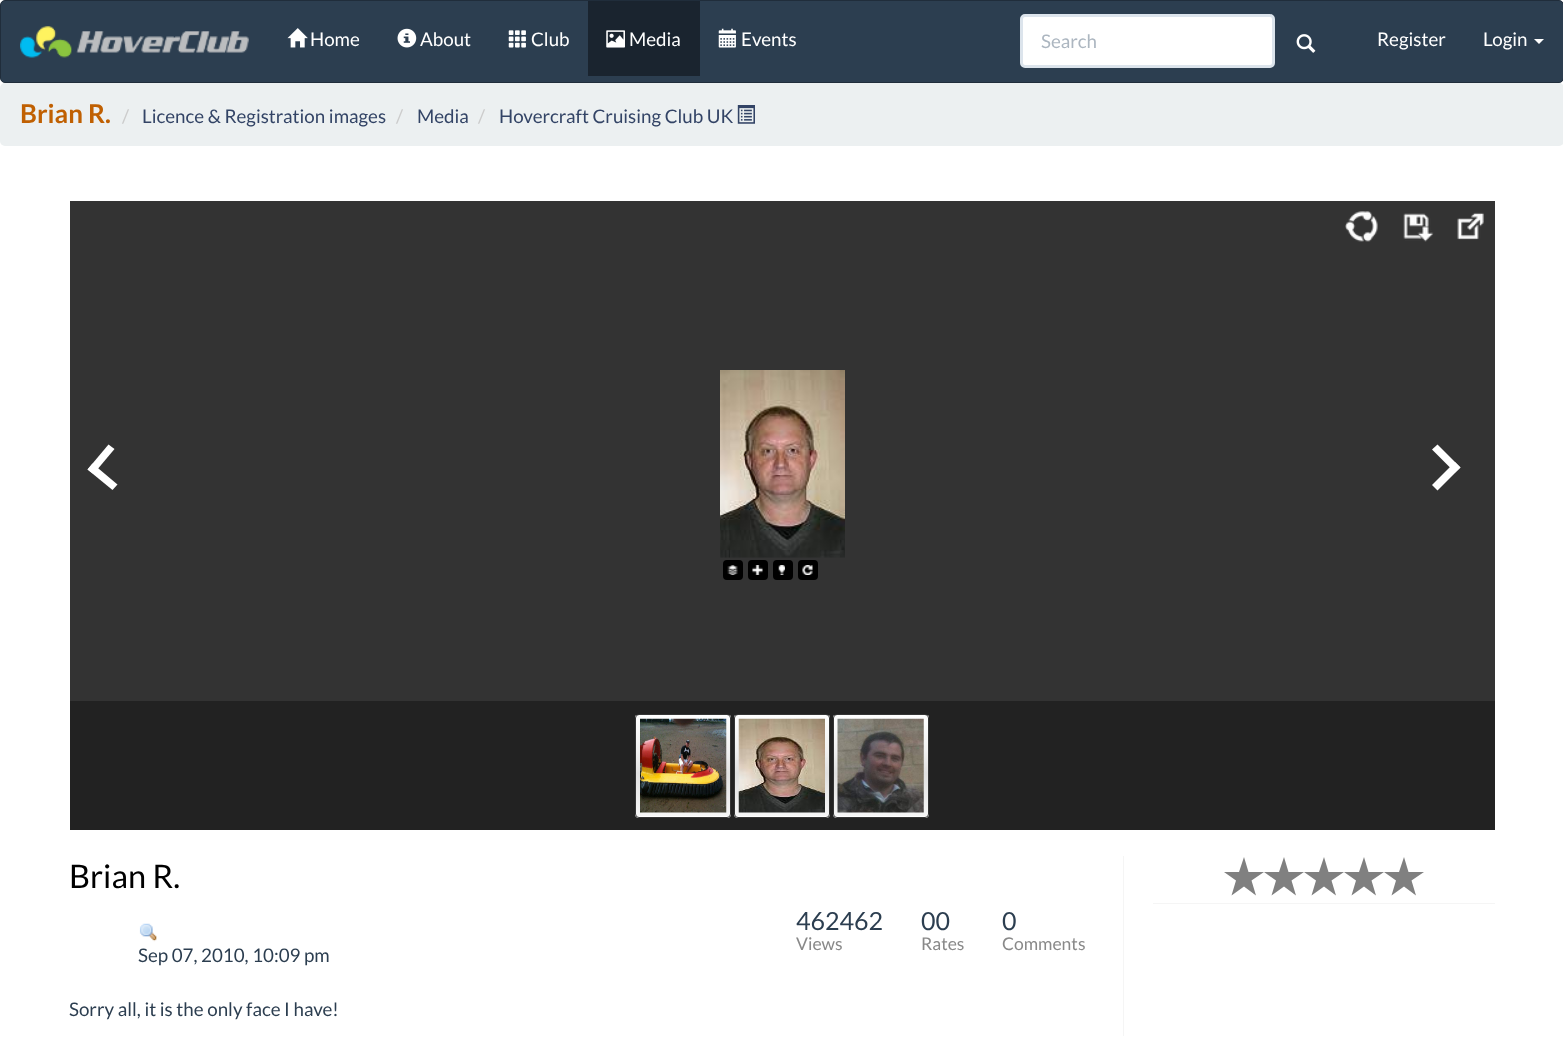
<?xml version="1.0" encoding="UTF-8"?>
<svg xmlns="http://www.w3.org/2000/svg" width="1563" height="1053">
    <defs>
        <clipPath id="clip1"><rect x="635" y="714" width="96" height="104" rx="4"/></clipPath>
        <linearGradient id="g1" gradientUnits="userSpaceOnUse" x1="683" y1="715" x2="683" y2="816"><stop offset="0" stop-color="#FFFFFF"/><stop offset="0.36" stop-color="#F1F1F1"/><stop offset="0.58" stop-color="#E1E1E1"/><stop offset="1" stop-color="#F6F6F6"/></linearGradient>
        <linearGradient id="g2" gradientUnits="userSpaceOnUse" x1="683" y1="816" x2="683" y2="918"><stop offset="0" stop-color="#FFFFFF"/><stop offset="0.36" stop-color="#F1F1F1"/><stop offset="0.58" stop-color="#E1E1E1"/><stop offset="1" stop-color="#F6F6F6"/></linearGradient>
        <clipPath id="clip2"><rect x="734" y="714" width="96" height="104" rx="4"/></clipPath>
        <linearGradient id="g3" gradientUnits="userSpaceOnUse" x1="782" y1="715" x2="782" y2="816"><stop offset="0" stop-color="#FFFFFF"/><stop offset="0.36" stop-color="#F1F1F1"/><stop offset="0.58" stop-color="#E1E1E1"/><stop offset="1" stop-color="#F6F6F6"/></linearGradient>
        <linearGradient id="g4" gradientUnits="userSpaceOnUse" x1="782" y1="816" x2="782" y2="918"><stop offset="0" stop-color="#FFFFFF"/><stop offset="0.36" stop-color="#F1F1F1"/><stop offset="0.58" stop-color="#E1E1E1"/><stop offset="1" stop-color="#F6F6F6"/></linearGradient>
        <clipPath id="clip3"><rect x="833" y="714" width="96" height="104" rx="4"/></clipPath>
        <linearGradient id="g5" gradientUnits="userSpaceOnUse" x1="881" y1="715" x2="881" y2="816"><stop offset="0" stop-color="#FFFFFF"/><stop offset="0.36" stop-color="#F1F1F1"/><stop offset="0.58" stop-color="#E1E1E1"/><stop offset="1" stop-color="#F6F6F6"/></linearGradient>
        <linearGradient id="g6" gradientUnits="userSpaceOnUse" x1="881" y1="816" x2="881" y2="918"><stop offset="0" stop-color="#FFFFFF"/><stop offset="0.36" stop-color="#F1F1F1"/><stop offset="0.58" stop-color="#E1E1E1"/><stop offset="1" stop-color="#F6F6F6"/></linearGradient>
    </defs>
    <rect width="100%" height="100%" fill="#FFFFFF"/>
    <rect x="0.5" y="0.5" width="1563" height="82" rx="4.5" fill="#2C3E50" stroke="#202D3B"/>
    <image x="20" y="26" width="229" height="32" href="img_01.png"/>
    <image x="287" y="28" width="21" height="20" href="img_02.png"/>
    <text x="310" y="46" font-family="Lato" font-size="18.75" fill="#FFFFFF">Home</text>
    <image x="397" y="28" width="20" height="20" href="img_03.png"/>
    <text x="420" y="46" font-family="Lato" font-size="18.75" fill="#FFFFFF">About</text>
    <image x="508" y="30" width="18" height="18" href="img_04.png"/>
    <text x="531" y="46" font-family="Lato" font-size="18.75" fill="#FFFFFF">Club</text>
    <rect x="588" y="1" width="112" height="75" fill="#1A242F"/>
    <image x="606" y="30" width="19" height="18" href="img_05.png"/>
    <text x="629" y="46" font-family="Lato" font-size="18.75" fill="#FFFFFF">Media</text>
    <image x="718" y="28" width="18" height="20" href="img_06.png"/>
    <text x="741" y="46" font-family="Lato" font-size="18.75" fill="#FFFFFF">Events</text>
    <rect x="1021.5" y="15.5" width="252" height="51" rx="3.5" fill="#FFFFFF" stroke="#DCE4EC" stroke-width="3"/>
    <text x="1041" y="48" font-family="Lato" font-size="18.75" fill="#ACB6C0">Search</text>
    <image x="1296" y="34" width="20" height="19" href="img_07.png"/>
    <text x="1377" y="46" font-family="Lato" font-size="18.75" fill="#FFFFFF">Register</text>
    <text x="1483" y="46" font-family="Lato" font-size="18.75" fill="#FFFFFF">Login</text>
    <path d="M 1534 39 H 1544 L 1539 44 Z" fill="#FFFFFF"/>
    <rect x="0" y="83" width="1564" height="63" rx="5" fill="#ECF0F1"/>
    <text x="20" y="123" font-family="Lato" font-size="26" font-weight="700" fill="#C06002">Brian R.</text>
    <text x="122" y="123" font-family="Lato" font-size="18.75" fill="#CCCCCC">/</text>
    <text x="142" y="123" font-family="Lato" font-size="18.75" fill="#334466">Licence &amp; Registration images</text>
    <text x="396" y="123" font-family="Lato" font-size="18.75" fill="#CCCCCC">/</text>
    <text x="417" y="123" font-family="Lato" font-size="18.75" fill="#334466">Media</text>
    <text x="478" y="123" font-family="Lato" font-size="18.75" fill="#CCCCCC">/</text>
    <text x="499" y="123" font-family="Lato" font-size="18.75" fill="#334466">Hovercraft Cruising Club UK</text>
    <image x="737" y="105" width="18" height="19" href="img_08.png"/>
    <rect x="70" y="201" width="1425" height="500" fill="#333333"/>
    <image x="1345" y="211" width="33" height="31" href="img_09.png"/>
    <image x="1403" y="213" width="31" height="29" href="img_10.png"/>
    <image x="1457" y="212" width="27" height="28" href="img_11.png"/>
    <path d="M 112.5 490 L 87.5 469.5 L 92.5 463.5 L 117.5 484.5 Z" fill="#FFFFFF"/>
    <path d="M 93.5 474 L 87.5 469.5 L 108.5 444.5 L 114.5 449 Z" fill="#FFFFFF"/>
    <image x="720" y="370" width="125" height="188" href="img_12.png"/>
    <rect x="723" y="560" width="20" height="20" rx="4" fill="#000000"/>
    <image x="727" y="565" width="11" height="10" href="img_13.png"/>
    <rect x="748" y="560" width="20" height="20" rx="4" fill="#000000"/>
    <image x="752" y="565" width="11" height="10" href="img_14.png"/>
    <rect x="773" y="560" width="20" height="20" rx="4" fill="#000000"/>
    <image x="778" y="565" width="7" height="10" href="img_15.png"/>
    <rect x="798" y="560" width="20" height="20" rx="4" fill="#000000"/>
    <image x="802" y="565" width="11" height="10" href="img_16.png"/>
    <path d="M 1437.5 444.5 L 1460.5 467.5 L 1455 472.5 L 1432 449.5 Z" fill="#FFFFFF"/>
    <path d="M 1455 462 L 1460.5 467.5 L 1437.5 490.5 L 1432 485 Z" fill="#FFFFFF"/>
    <rect x="70" y="701" width="1425" height="129" fill="#222222"/>
    <g clip-path="url(#clip1)">
        <rect x="635" y="715" width="96" height="101" fill="url(#g1)"/>
        <rect x="635" y="816" width="96" height="2" fill="url(#g2)"/>
    </g>
    <rect x="635.5" y="714.5" width="95" height="103" rx="3.5" fill="none" stroke="#353535"/>
    <image x="640" y="718" width="87" height="95" href="img_17.png"/>
    <g clip-path="url(#clip2)">
        <rect x="734" y="715" width="96" height="101" fill="url(#g3)"/>
        <rect x="734" y="816" width="96" height="2" fill="url(#g4)"/>
    </g>
    <rect x="734.5" y="714.5" width="95" height="103" rx="3.5" fill="none" stroke="#353535"/>
    <image x="738" y="718" width="87" height="95" href="img_18.png"/>
    <g clip-path="url(#clip3)">
        <rect x="833" y="715" width="96" height="101" fill="url(#g5)"/>
        <rect x="833" y="816" width="96" height="2" fill="url(#g6)"/>
    </g>
    <rect x="833.5" y="714.5" width="95" height="103" rx="3.5" fill="none" stroke="#353535"/>
    <image x="837" y="718" width="87" height="95" href="img_19.png"/>
    <rect x="1123" y="856" width="1" height="180" fill="#F5F5F5"/>
    <text x="69" y="888" font-family="Lato" font-size="32.5" fill="#000000">Brian R.</text>
    <text x="796" y="930" font-family="Lato" font-size="25" fill="#2C3E50">462462</text>
    <text x="796" y="950" font-family="Lato" font-size="17.5" fill="#898989">Views</text>
    <text x="921" y="930" font-family="Lato" font-size="25" fill="#2C3E50">00</text>
    <text x="921" y="950" font-family="Lato" font-size="17.5" fill="#898989">Rates</text>
    <text x="1002" y="930" font-family="Lato" font-size="25" fill="#2C3E50">0</text>
    <text x="1002" y="950" font-family="Lato" font-size="17.5" fill="#898989">Comments</text>
    <image x="139" y="923" width="18" height="19" href="img_20.png"/>
    <text x="138" y="962" font-family="Lato" font-size="18.75" fill="#2C3E50">Sep 07, 2010, 10:09 pm</text>
    <text x="69" y="1016" font-family="Lato" font-size="18.75" fill="#2C3E50">Sorry all, it is the only face I have!</text>
    <path d="M 1244 857 L 1248.5 872 H 1264 L 1251.5 880.5 L 1256 895.5 L 1244 886.5 L 1231.5 895.5 L 1236 880.5 L 1224 872 H 1239 Z" fill="#808080"/>
    <path d="M 1284 857 L 1288.5 872 H 1304 L 1291.5 880.5 L 1296 895.5 L 1284 886.5 L 1271.5 895.5 L 1276 880.5 L 1264 872 H 1279 Z" fill="#808080"/>
    <path d="M 1324 857 L 1328.5 872 H 1344 L 1331.5 880.5 L 1336 895.5 L 1324 886.5 L 1311.5 895.5 L 1316 880.5 L 1304 872 H 1319 Z" fill="#808080"/>
    <path d="M 1364 857 L 1368.5 872 H 1384 L 1371.5 880.5 L 1376 895.5 L 1364 886.5 L 1351.5 895.5 L 1356 880.5 L 1344 872 H 1359 Z" fill="#808080"/>
    <path d="M 1404 857 L 1408.5 872 H 1424 L 1411.5 880.5 L 1416 895.5 L 1404 886.5 L 1391.5 895.5 L 1396 880.5 L 1384 872 H 1399 Z" fill="#808080"/>
    <rect x="1153" y="903" width="342" height="1" fill="#F5F5F5"/>
</svg>
